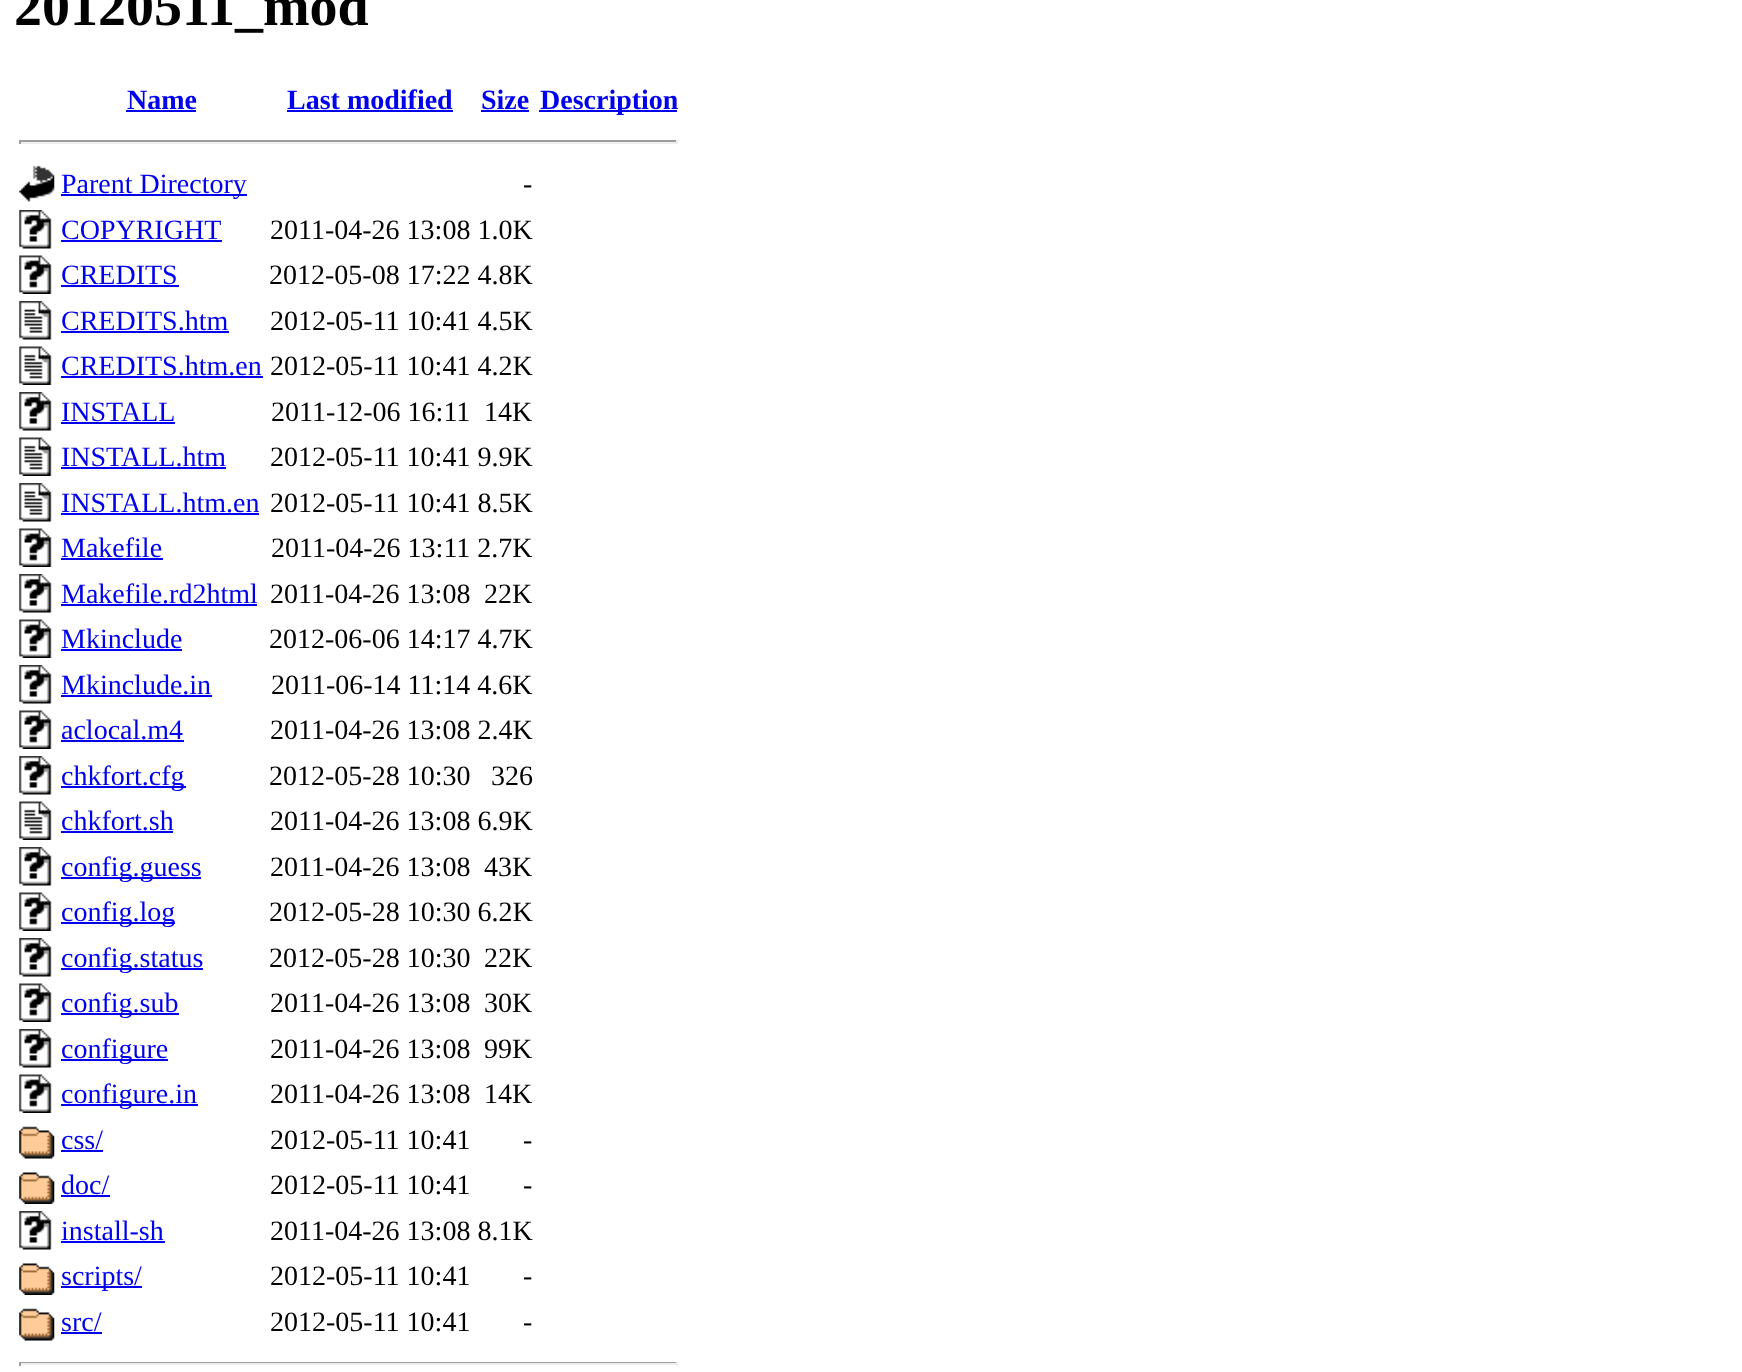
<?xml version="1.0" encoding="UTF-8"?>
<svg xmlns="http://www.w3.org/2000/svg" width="1742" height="1372">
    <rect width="100%" height="100%" fill="#FFFFFF"/>
    <text x="14" y="25" font-family="Liberation Serif" font-size="56" font-weight="700" fill="#000000">20120511_mod</text>
    <text x="127" y="109" font-family="Liberation Serif" font-size="28" font-weight="700" fill="#0000EE">Name</text>
    <rect x="126" y="110" width="70" height="2" fill="#0000EE"/>
    <text x="287" y="109" font-family="Liberation Serif" font-size="28" font-weight="700" fill="#0000EE">Last modified</text>
    <rect x="287" y="110" width="166" height="2" fill="#0000EE"/>
    <text x="481" y="109" font-family="Liberation Serif" font-size="28" font-weight="700" fill="#0000EE">Size</text>
    <rect x="481" y="110" width="48" height="2" fill="#0000EE"/>
    <rect x="539" y="110" width="138" height="2" fill="#0000EE"/>
    <text x="540" y="109" font-family="Liberation Serif" font-size="28" font-weight="700" fill="#0000EE">Description</text>
    <rect x="19" y="140" width="658" height="2" fill="#9F9F9F"/>
    <rect x="676" y="140" width="2" height="4" fill="#EEEEEE"/>
    <rect x="19" y="142" width="658" height="2" fill="#EEEEEE"/>
    <rect x="19" y="140" width="2" height="4" fill="#9F9F9F"/>
    <image x="19" y="165" width="36" height="37" href="img_01.png"/>
    <rect x="61" y="194" width="186" height="2" fill="#0000EE"/>
    <text x="61" y="193" font-family="Liberation Serif" font-size="28" fill="#0000EE">Parent Directory</text>
    <text x="523" y="193" font-family="Liberation Serif" font-size="28" fill="#000000">-</text>
    <image x="19" y="210" width="33" height="39" href="img_02.png"/>
    <text x="61" y="239" font-family="Liberation Serif" font-size="28" fill="#0000EE">COPYRIGHT</text>
    <rect x="61" y="240" width="161" height="2" fill="#0000EE"/>
    <text x="270" y="239" font-family="Liberation Serif" font-size="28" fill="#000000">2011-04-26 13:08 1.0K</text>
    <image x="19" y="255" width="33" height="39" href="img_03.png"/>
    <text x="61" y="284" font-family="Liberation Serif" font-size="28" fill="#0000EE">CREDITS</text>
    <rect x="61" y="285" width="118" height="2" fill="#0000EE"/>
    <text x="269" y="284" font-family="Liberation Serif" font-size="28" fill="#000000">2012-05-08 17:22 4.8K</text>
    <image x="19" y="301" width="33" height="39" href="img_04.png"/>
    <text x="61" y="330" font-family="Liberation Serif" font-size="28" fill="#0000EE">CREDITS.htm</text>
    <rect x="61" y="331" width="168" height="2" fill="#0000EE"/>
    <text x="270" y="330" font-family="Liberation Serif" font-size="28" fill="#000000">2012-05-11 10:41 4.5K</text>
    <image x="19" y="346" width="33" height="39" href="img_05.png"/>
    <text x="61" y="375" font-family="Liberation Serif" font-size="28" fill="#0000EE">CREDITS.htm.en</text>
    <rect x="61" y="376" width="202" height="2" fill="#0000EE"/>
    <text x="270" y="375" font-family="Liberation Serif" font-size="28" fill="#000000">2012-05-11 10:41 4.2K</text>
    <image x="19" y="392" width="33" height="39" href="img_02.png"/>
    <text x="61" y="421" font-family="Liberation Serif" font-size="28" fill="#0000EE">INSTALL</text>
    <rect x="61" y="422" width="114" height="2" fill="#0000EE"/>
    <text x="271" y="421" font-family="Liberation Serif" font-size="28" fill="#000000">2011-12-06 16:11</text>
    <text x="484" y="421" font-family="Liberation Serif" font-size="28" fill="#000000">14K</text>
    <image x="19" y="437" width="33" height="39" href="img_05.png"/>
    <text x="61" y="466" font-family="Liberation Serif" font-size="28" fill="#0000EE">INSTALL.htm</text>
    <rect x="61" y="467" width="165" height="2" fill="#0000EE"/>
    <text x="270" y="466" font-family="Liberation Serif" font-size="28" fill="#000000">2012-05-11 10:41 9.9K</text>
    <image x="19" y="483" width="33" height="39" href="img_04.png"/>
    <text x="61" y="512" font-family="Liberation Serif" font-size="28" fill="#0000EE">INSTALL.htm.en</text>
    <rect x="61" y="513" width="198" height="2" fill="#0000EE"/>
    <text x="270" y="512" font-family="Liberation Serif" font-size="28" fill="#000000">2012-05-11 10:41 8.5K</text>
    <image x="19" y="528" width="33" height="39" href="img_03.png"/>
    <text x="61" y="557" font-family="Liberation Serif" font-size="28" fill="#0000EE">Makefile</text>
    <rect x="61" y="558" width="102" height="2" fill="#0000EE"/>
    <text x="271" y="557" font-family="Liberation Serif" font-size="28" fill="#000000">2011-04-26 13:11 2.7K</text>
    <image x="19" y="574" width="33" height="39" href="img_02.png"/>
    <text x="61" y="603" font-family="Liberation Serif" font-size="28" fill="#0000EE">Makefile.rd2html</text>
    <rect x="61" y="604" width="196" height="2" fill="#0000EE"/>
    <text x="270" y="603" font-family="Liberation Serif" font-size="28" fill="#000000">2011-04-26 13:08</text>
    <text x="484" y="603" font-family="Liberation Serif" font-size="28" fill="#000000">22K</text>
    <image x="19" y="619" width="33" height="39" href="img_03.png"/>
    <text x="61" y="648" font-family="Liberation Serif" font-size="28" fill="#0000EE">Mkinclude</text>
    <rect x="61" y="649" width="121" height="2" fill="#0000EE"/>
    <text x="269" y="648" font-family="Liberation Serif" font-size="28" fill="#000000">2012-06-06 14:17 4.7K</text>
    <image x="19" y="665" width="33" height="39" href="img_02.png"/>
    <text x="61" y="694" font-family="Liberation Serif" font-size="28" fill="#0000EE">Mkinclude.in</text>
    <rect x="61" y="695" width="151" height="2" fill="#0000EE"/>
    <text x="271" y="694" font-family="Liberation Serif" font-size="28" fill="#000000">2011-06-14 11:14 4.6K</text>
    <image x="19" y="710" width="33" height="39" href="img_03.png"/>
    <text x="61" y="739" font-family="Liberation Serif" font-size="28" fill="#0000EE">aclocal.m4</text>
    <rect x="61" y="740" width="123" height="2" fill="#0000EE"/>
    <text x="270" y="739" font-family="Liberation Serif" font-size="28" fill="#000000">2011-04-26 13:08 2.4K</text>
    <image x="19" y="756" width="33" height="39" href="img_02.png"/>
    <rect x="61" y="786" width="125" height="2" fill="#0000EE"/>
    <text x="61" y="785" font-family="Liberation Serif" font-size="28" fill="#0000EE">chkfort.cfg</text>
    <text x="269" y="785" font-family="Liberation Serif" font-size="28" fill="#000000">2012-05-28 10:30</text>
    <text x="491" y="785" font-family="Liberation Serif" font-size="28" fill="#000000">326</text>
    <image x="19" y="801" width="33" height="39" href="img_05.png"/>
    <text x="61" y="830" font-family="Liberation Serif" font-size="28" fill="#0000EE">chkfort.sh</text>
    <rect x="61" y="831" width="112" height="2" fill="#0000EE"/>
    <text x="270" y="830" font-family="Liberation Serif" font-size="28" fill="#000000">2011-04-26 13:08 6.9K</text>
    <image x="19" y="847" width="33" height="39" href="img_02.png"/>
    <rect x="61" y="877" width="140" height="2" fill="#0000EE"/>
    <text x="61" y="876" font-family="Liberation Serif" font-size="28" fill="#0000EE">config.guess</text>
    <text x="270" y="876" font-family="Liberation Serif" font-size="28" fill="#000000">2011-04-26 13:08</text>
    <text x="484" y="876" font-family="Liberation Serif" font-size="28" fill="#000000">43K</text>
    <image x="19" y="892" width="33" height="39" href="img_03.png"/>
    <rect x="61" y="922" width="114" height="2" fill="#0000EE"/>
    <text x="61" y="921" font-family="Liberation Serif" font-size="28" fill="#0000EE">config.log</text>
    <text x="269" y="921" font-family="Liberation Serif" font-size="28" fill="#000000">2012-05-28 10:30 6.2K</text>
    <image x="19" y="938" width="33" height="39" href="img_02.png"/>
    <rect x="61" y="968" width="142" height="2" fill="#0000EE"/>
    <text x="61" y="967" font-family="Liberation Serif" font-size="28" fill="#0000EE">config.status</text>
    <text x="269" y="967" font-family="Liberation Serif" font-size="28" fill="#000000">2012-05-28 10:30</text>
    <text x="484" y="967" font-family="Liberation Serif" font-size="28" fill="#000000">22K</text>
    <image x="19" y="983" width="33" height="39" href="img_03.png"/>
    <rect x="61" y="1013" width="118" height="2" fill="#0000EE"/>
    <text x="61" y="1012" font-family="Liberation Serif" font-size="28" fill="#0000EE">config.sub</text>
    <text x="270" y="1012" font-family="Liberation Serif" font-size="28" fill="#000000">2011-04-26 13:08</text>
    <text x="484" y="1012" font-family="Liberation Serif" font-size="28" fill="#000000">30K</text>
    <image x="19" y="1029" width="33" height="39" href="img_02.png"/>
    <rect x="61" y="1059" width="107" height="2" fill="#0000EE"/>
    <text x="61" y="1058" font-family="Liberation Serif" font-size="28" fill="#0000EE">configure</text>
    <text x="270" y="1058" font-family="Liberation Serif" font-size="28" fill="#000000">2011-04-26 13:08</text>
    <text x="484" y="1058" font-family="Liberation Serif" font-size="28" fill="#000000">99K</text>
    <image x="19" y="1074" width="33" height="39" href="img_03.png"/>
    <rect x="61" y="1104" width="137" height="2" fill="#0000EE"/>
    <text x="61" y="1103" font-family="Liberation Serif" font-size="28" fill="#0000EE">configure.in</text>
    <text x="270" y="1103" font-family="Liberation Serif" font-size="28" fill="#000000">2011-04-26 13:08</text>
    <text x="484" y="1103" font-family="Liberation Serif" font-size="28" fill="#000000">14K</text>
    <image x="19" y="1126" width="36" height="33" href="img_06.png"/>
    <text x="61" y="1149" font-family="Liberation Serif" font-size="28" fill="#0000EE">css/</text>
    <rect x="61" y="1150" width="42" height="2" fill="#0000EE"/>
    <text x="270" y="1149" font-family="Liberation Serif" font-size="28" fill="#000000">2012-05-11 10:41</text>
    <text x="523" y="1149" font-family="Liberation Serif" font-size="28" fill="#000000">-</text>
    <image x="19" y="1172" width="36" height="32" href="img_07.png"/>
    <text x="61" y="1194" font-family="Liberation Serif" font-size="28" fill="#0000EE">doc/</text>
    <rect x="61" y="1195" width="49" height="2" fill="#0000EE"/>
    <text x="270" y="1194" font-family="Liberation Serif" font-size="28" fill="#000000">2012-05-11 10:41</text>
    <text x="523" y="1194" font-family="Liberation Serif" font-size="28" fill="#000000">-</text>
    <image x="19" y="1211" width="33" height="39" href="img_02.png"/>
    <text x="61" y="1240" font-family="Liberation Serif" font-size="28" fill="#0000EE">install-sh</text>
    <rect x="61" y="1241" width="104" height="2" fill="#0000EE"/>
    <text x="270" y="1240" font-family="Liberation Serif" font-size="28" fill="#000000">2011-04-26 13:08 8.1K</text>
    <image x="19" y="1263" width="36" height="32" href="img_07.png"/>
    <rect x="61" y="1286" width="81" height="2" fill="#0000EE"/>
    <text x="61" y="1285" font-family="Liberation Serif" font-size="28" fill="#0000EE">scripts/</text>
    <text x="270" y="1285" font-family="Liberation Serif" font-size="28" fill="#000000">2012-05-11 10:41</text>
    <text x="523" y="1285" font-family="Liberation Serif" font-size="28" fill="#000000">-</text>
    <image x="19" y="1308" width="36" height="33" href="img_06.png"/>
    <text x="61" y="1331" font-family="Liberation Serif" font-size="28" fill="#0000EE">src/</text>
    <rect x="61" y="1332" width="41" height="2" fill="#0000EE"/>
    <text x="270" y="1331" font-family="Liberation Serif" font-size="28" fill="#000000">2012-05-11 10:41</text>
    <text x="523" y="1331" font-family="Liberation Serif" font-size="28" fill="#000000">-</text>
    <rect x="19" y="1362" width="658" height="1" fill="#9F9F9F"/>
    <rect x="676" y="1362" width="2" height="4" fill="#EEEEEE"/>
    <rect x="19" y="1363" width="658" height="2" fill="#EEEEEE"/>
    <rect x="19" y="1362" width="2" height="4" fill="#9F9F9F"/>
</svg>
